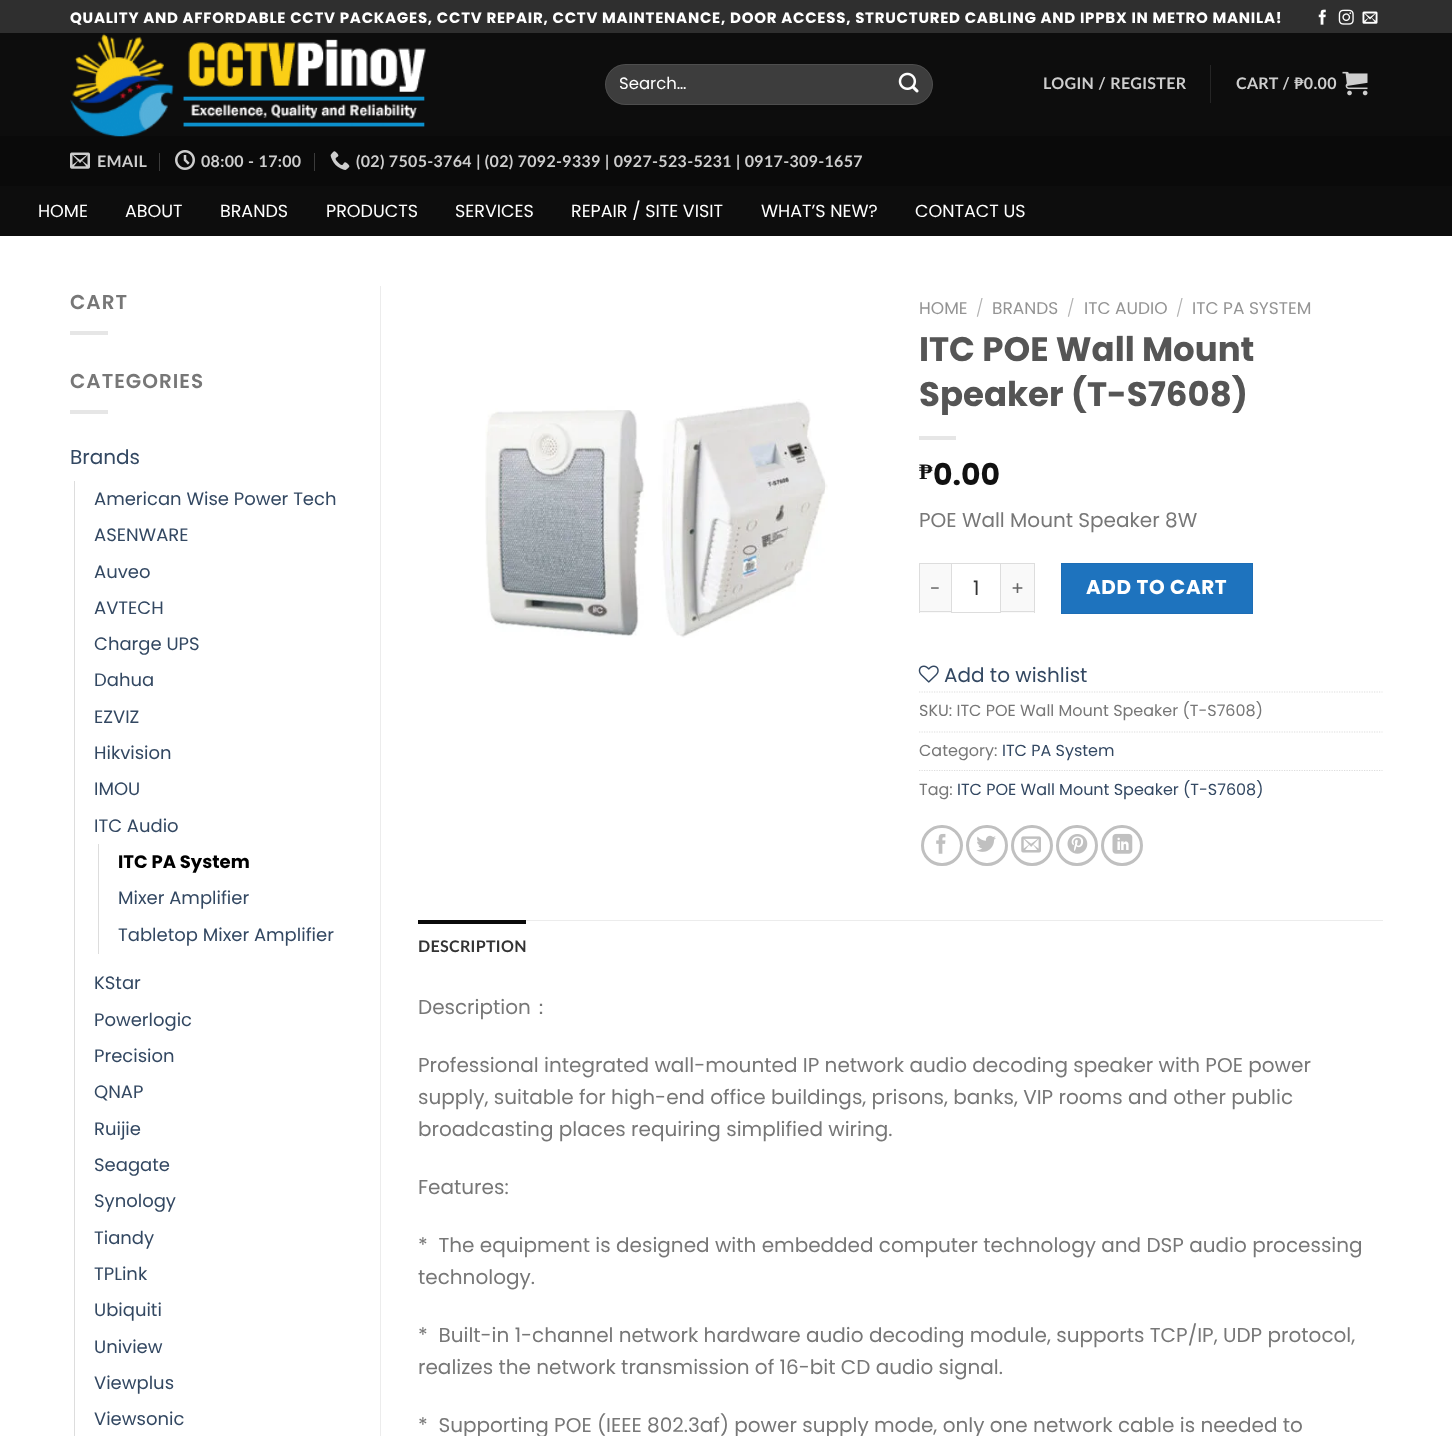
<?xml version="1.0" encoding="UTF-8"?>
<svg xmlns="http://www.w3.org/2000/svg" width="1452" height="1436">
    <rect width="100%" height="100%" fill="#FFFFFF"/>
    <rect x="0" y="0" width="1452" height="33" fill="#2F2F2F"/>
    <text x="70" y="23" font-family="Poppins" font-size="15" font-weight="700" letter-spacing="0.75" fill="#FFFFFF">QUALITY AND AFFORDABLE CCTV PACKAGES, CCTV REPAIR, CCTV MAINTENANCE, DOOR ACCESS, STRUCTURED CABLING AND IPPBX IN METRO MANILA!</text>
    <image x="1318" y="9" width="8" height="16" href="img_01.png"/>
    <image x="1338" y="9" width="16" height="16" href="img_02.png"/>
    <image x="1362" y="11" width="16" height="13" href="img_03.png"/>
    <rect x="0" y="33" width="1452" height="203" fill="#0D0D0D"/>
    <rect x="0" y="136" width="1452" height="50" fill="#0A0A0A"/>
    <image x="70" y="33" width="356" height="104" href="img_04.png"/>
    <rect x="605" y="64" width="328" height="41" rx="20.5" fill="#3D3D3D"/>
    <rect x="605.5" y="64.5" width="327" height="40" rx="20" fill="none" stroke="#FFFFFF" stroke-opacity="0.09"/>
    <text x="619" y="89" font-family="Poppins" font-size="16.5" fill="#FFFFFF">Search…</text>
    <image x="898" y="72" width="21" height="21" href="img_05.png"/>
    <text x="1043" y="89" font-family="Lato" font-size="16" font-weight="700" letter-spacing="0.32" fill="#CECECE">LOGIN / REGISTER</text>
    <rect x="1210" y="65" width="1" height="38" fill="#252525"/>
    <text x="1236" y="89" font-family="Lato" font-size="16" font-weight="700" letter-spacing="0.32" fill="#CECECE">CART / ₱0.00</text>
    <image x="1342" y="71" width="26" height="25" href="img_06.png"/>
    <image x="70" y="152" width="20" height="17" href="img_07.png"/>
    <text x="97" y="167" font-family="Lato" font-size="16" font-weight="700" letter-spacing="0.32" fill="#CECECE">EMAIL</text>
    <rect x="159" y="153" width="1" height="18" fill="#3B3B3B"/>
    <image x="175" y="150" width="20" height="20" href="img_08.png"/>
    <text x="201" y="167" font-family="Lato" font-size="16" font-weight="700" letter-spacing="0.32" fill="#CECECE">08:00 - 17:00</text>
    <rect x="314" y="153" width="1" height="18" fill="#3B3B3B"/>
    <image x="330" y="151" width="20" height="19" href="img_09.png"/>
    <text x="356" y="167" font-family="Lato" font-size="16" font-weight="700" letter-spacing="0.32" fill="#CECECE">(02) 7505-3764 | (02) 7092-9339 | 0927-523-5231 | 0917-309-1657</text>
    <text x="38" y="217" font-family="Poppins" font-size="17.5" fill="#FFFFFF">HOME</text>
    <text x="125" y="217" font-family="Poppins" font-size="17.5" fill="#FFFFFF">ABOUT</text>
    <text x="220" y="217" font-family="Poppins" font-size="17.5" fill="#FFFFFF">BRANDS</text>
    <text x="326" y="217" font-family="Poppins" font-size="17.5" fill="#FFFFFF">PRODUCTS</text>
    <text x="455" y="217" font-family="Poppins" font-size="17.5" fill="#FFFFFF">SERVICES</text>
    <text x="571" y="217" font-family="Poppins" font-size="17.5" fill="#FFFFFF">REPAIR / SITE VISIT</text>
    <text x="761" y="217" font-family="Poppins" font-size="17.5" fill="#FFFFFF">WHAT’S NEW?</text>
    <text x="915" y="217" font-family="Poppins" font-size="17.5" fill="#FFFFFF">CONTACT US</text>
    <text x="70" y="309" font-family="Poppins" font-size="20" font-weight="600" letter-spacing="1" fill="#777777">CART</text>
    <rect x="70" y="331" width="38" height="4" fill="#E6E6E6"/>
    <text x="70" y="388" font-family="Poppins" font-size="20" font-weight="600" letter-spacing="1" fill="#777777">CATEGORIES</text>
    <rect x="70" y="410" width="38" height="4" fill="#E6E6E6"/>
    <text x="70" y="464" font-family="Poppins" font-size="20" fill="#334862">Brands</text>
    <rect x="74" y="481" width="1" height="955" fill="#DDDDDD"/>
    <text x="94" y="505" font-family="Poppins" font-size="18" fill="#334862">American Wise Power Tech</text>
    <text x="94" y="541" font-family="Poppins" font-size="18" fill="#334862">ASENWARE</text>
    <text x="94" y="578" font-family="Poppins" font-size="18" fill="#334862">Auveo</text>
    <text x="94" y="614" font-family="Poppins" font-size="18" fill="#334862">AVTECH</text>
    <text x="94" y="650" font-family="Poppins" font-size="18" fill="#334862">Charge UPS</text>
    <text x="94" y="686" font-family="Poppins" font-size="18" fill="#334862">Dahua</text>
    <text x="94" y="723" font-family="Poppins" font-size="18" fill="#334862">EZVIZ</text>
    <text x="94" y="759" font-family="Poppins" font-size="18" fill="#334862">Hikvision</text>
    <text x="94" y="795" font-family="Poppins" font-size="18" fill="#334862">IMOU</text>
    <text x="94" y="832" font-family="Poppins" font-size="18" fill="#334862">ITC Audio</text>
    <rect x="98" y="844" width="1" height="110" fill="#DDDDDD"/>
    <text x="118" y="868" font-family="Poppins" font-size="18" font-weight="700" fill="#000000">ITC PA System</text>
    <text x="118" y="904" font-family="Poppins" font-size="18" fill="#334862">Mixer Amplifier</text>
    <text x="118" y="941" font-family="Poppins" font-size="18" fill="#334862">Tabletop Mixer Amplifier</text>
    <text x="94" y="989" font-family="Poppins" font-size="18" fill="#334862">KStar</text>
    <text x="94" y="1026" font-family="Poppins" font-size="18" fill="#334862">Powerlogic</text>
    <text x="94" y="1062" font-family="Poppins" font-size="18" fill="#334862">Precision</text>
    <text x="94" y="1098" font-family="Poppins" font-size="18" fill="#334862">QNAP</text>
    <text x="94" y="1135" font-family="Poppins" font-size="18" fill="#334862">Ruijie</text>
    <text x="94" y="1171" font-family="Poppins" font-size="18" fill="#334862">Seagate</text>
    <text x="94" y="1207" font-family="Poppins" font-size="18" fill="#334862">Synology</text>
    <text x="94" y="1244" font-family="Poppins" font-size="18" fill="#334862">Tiandy</text>
    <text x="94" y="1280" font-family="Poppins" font-size="18" fill="#334862">TPLink</text>
    <text x="94" y="1316" font-family="Poppins" font-size="18" fill="#334862">Ubiquiti</text>
    <text x="94" y="1353" font-family="Poppins" font-size="18" fill="#334862">Uniview</text>
    <text x="94" y="1389" font-family="Poppins" font-size="18" fill="#334862">Viewplus</text>
    <text x="94" y="1425" font-family="Poppins" font-size="18" fill="#334862">Viewsonic</text>
    <rect x="380" y="286" width="1" height="1150" fill="#ECECEC"/>
    <image x="485" y="399" width="343" height="239" href="img_10.png"/>
    <text x="919" y="314" font-family="Poppins" font-size="17" fill="#949494">HOME</text>
    <text x="976" y="314" font-family="Poppins" font-size="17" font-weight="300" fill="#B2B2B2">/</text>
    <text x="992" y="314" font-family="Poppins" font-size="17" fill="#949494">BRANDS</text>
    <text x="1067" y="314" font-family="Poppins" font-size="17" font-weight="300" fill="#B2B2B2">/</text>
    <text x="1084" y="314" font-family="Poppins" font-size="17" fill="#949494">ITC AUDIO</text>
    <text x="1176" y="314" font-family="Poppins" font-size="17" font-weight="300" fill="#B2B2B2">/</text>
    <text x="1192" y="314" font-family="Poppins" font-size="17" fill="#949494">ITC PA SYSTEM</text>
    <text font-family="Poppins" font-size="34" font-weight="700" fill="#555555">
        <tspan x="919" y="361">ITC POE Wall Mount</tspan>
        <tspan x="919" y="406">Speaker (T-S7608)</tspan>
    </text>
    <rect x="919" y="436" width="37" height="4" fill="#E6E6E6"/>
    <text x="919" y="479" font-family="Liberation Serif" font-size="22" font-weight="700" fill="#111111">₱</text>
    <text x="933" y="485" font-family="Poppins" font-size="30" font-weight="700" fill="#111111">0.00</text>
    <text x="919" y="527" font-family="Poppins" font-size="20" fill="#777777">POE Wall Mount Speaker 8W</text>
    <rect x="920" y="564" width="31" height="49" fill="#F9F9F9"/>
    <rect x="919" y="563" width="32" height="1" fill="#DDDDDD"/>
    <rect x="919" y="611" width="32" height="1" fill="#DDDDDD"/>
    <rect x="919" y="563" width="1" height="50" fill="#DDDDDD"/>
    <text x="930" y="595" font-family="Poppins" font-size="19" letter-spacing="1" fill="#666666">-</text>
    <rect x="951.5" y="563.5" width="49" height="49" fill="none" stroke="#DDDDDD"/>
    <text x="973" y="595" font-family="Poppins" font-size="20" fill="#333333">1</text>
    <rect x="1001" y="564" width="33" height="49" fill="#F9F9F9"/>
    <rect x="1001" y="563" width="34" height="1" fill="#DDDDDD"/>
    <rect x="1034" y="563" width="1" height="50" fill="#DDDDDD"/>
    <rect x="1001" y="611" width="34" height="1" fill="#DDDDDD"/>
    <text x="1011" y="595" font-family="Poppins" font-size="19" letter-spacing="1" fill="#666666">+</text>
    <rect x="1061.5" y="563.5" width="191" height="50" fill="#1E73BE" stroke="#1D6DB5"/>
    <text x="1086" y="594" font-family="Poppins" font-size="20" font-weight="700" letter-spacing="0.6" fill="#FFFFFF">ADD TO CART</text>
    <image x="918" y="665" width="21" height="18" href="img_11.png"/>
    <text x="944" y="682" font-family="Poppins" font-size="20" fill="#334862">Add to wishlist</text>
    <path d="M 919 692 H 1382.5" fill="none" stroke="#DDDDDD" stroke-width="1.2" stroke-dasharray="1.25 1.25"/>
    <text x="919" y="716" font-family="Poppins" font-size="16" fill="#777777">SKU: ITC POE Wall Mount Speaker (T-S7608)</text>
    <path d="M 919 732 H 1382.5" fill="none" stroke="#DDDDDD" stroke-width="1.2" stroke-dasharray="1.25 1.25"/>
    <text x="919" y="756" font-family="Poppins" font-size="16" fill="#777777">Category:</text>
    <text x="1002" y="756" font-family="Poppins" font-size="16" fill="#334862">ITC PA System</text>
    <path d="M 919 770.5 H 1382.5" fill="none" stroke="#DDDDDD" stroke-width="1.2" stroke-dasharray="1.25 1.25"/>
    <text x="919" y="795" font-family="Poppins" font-size="16" fill="#777777">Tag:</text>
    <text x="957" y="795" font-family="Poppins" font-size="16" fill="#334862">ITC POE Wall Mount Speaker (T-S7608)</text>
    <rect x="922.5" y="826.5" width="39" height="38" rx="19" fill="none" stroke="#C0C0C0" stroke-width="3"/>
    <image x="936" y="833" width="10" height="21" href="img_12.png"/>
    <rect x="967.5" y="826.5" width="39" height="38" rx="19" fill="none" stroke="#C0C0C0" stroke-width="3"/>
    <image x="976" y="835" width="20" height="17" href="img_13.png"/>
    <rect x="1012.5" y="826.5" width="39" height="38" rx="19" fill="none" stroke="#C0C0C0" stroke-width="3"/>
    <image x="1021" y="836" width="20" height="17" href="img_14.png"/>
    <rect x="1057.5" y="826.5" width="39" height="38" rx="19" fill="none" stroke="#C0C0C0" stroke-width="3"/>
    <image x="1067" y="834" width="21" height="20" href="img_15.png"/>
    <rect x="1102.5" y="826.5" width="39" height="38" rx="19" fill="none" stroke="#C0C0C0" stroke-width="3"/>
    <image x="1112" y="833" width="21" height="21" href="img_16.png"/>
    <rect x="526" y="920" width="857" height="1" fill="#ECECEC"/>
    <rect x="418" y="920" width="108" height="4" fill="#0A0A0A"/>
    <text x="418" y="952" font-family="Lato" font-size="16" font-weight="700" letter-spacing="0.32" fill="#333333">DESCRIPTION</text>
    <text x="418" y="1014" font-family="Poppins" font-size="20" fill="#777777">Description</text>
    <text x="531" y="1014" font-family="WenQuanYi Zen Hei" font-size="20" font-weight="500" fill="#777777">：</text>
    <text font-family="Poppins" font-size="20" fill="#777777">
        <tspan x="418" y="1072">Professional integrated wall-mounted IP network audio decoding speaker with POE power</tspan>
        <tspan x="418" y="1104">supply, suitable for high-end office buildings, prisons, banks, VIP rooms and other public</tspan>
        <tspan x="418" y="1136">broadcasting places requiring simplified wiring.</tspan>
    </text>
    <text x="418" y="1194" font-family="Poppins" font-size="20" fill="#777777">Features:</text>
    <text font-family="Poppins" font-size="20" fill="#777777" xml:space="preserve"><tspan x="418" y="1252">*  The equipment is designed with embedded computer technology and DSP audio processing</tspan><tspan x="418" y="1284">technology.</tspan></text>
    <text font-family="Poppins" font-size="20" fill="#777777" xml:space="preserve"><tspan x="418" y="1342">*  Built-in 1-channel network hardware audio decoding module, supports TCP/IP, UDP protocol,</tspan><tspan x="418" y="1374">realizes the network transmission of 16-bit CD audio signal.</tspan></text>
    <text x="418" y="1432" font-family="Poppins" font-size="20" fill="#777777" xml:space="preserve">*  Supporting POE (IEEE 802.3af) power supply mode, only one network cable is needed to</text>
</svg>
